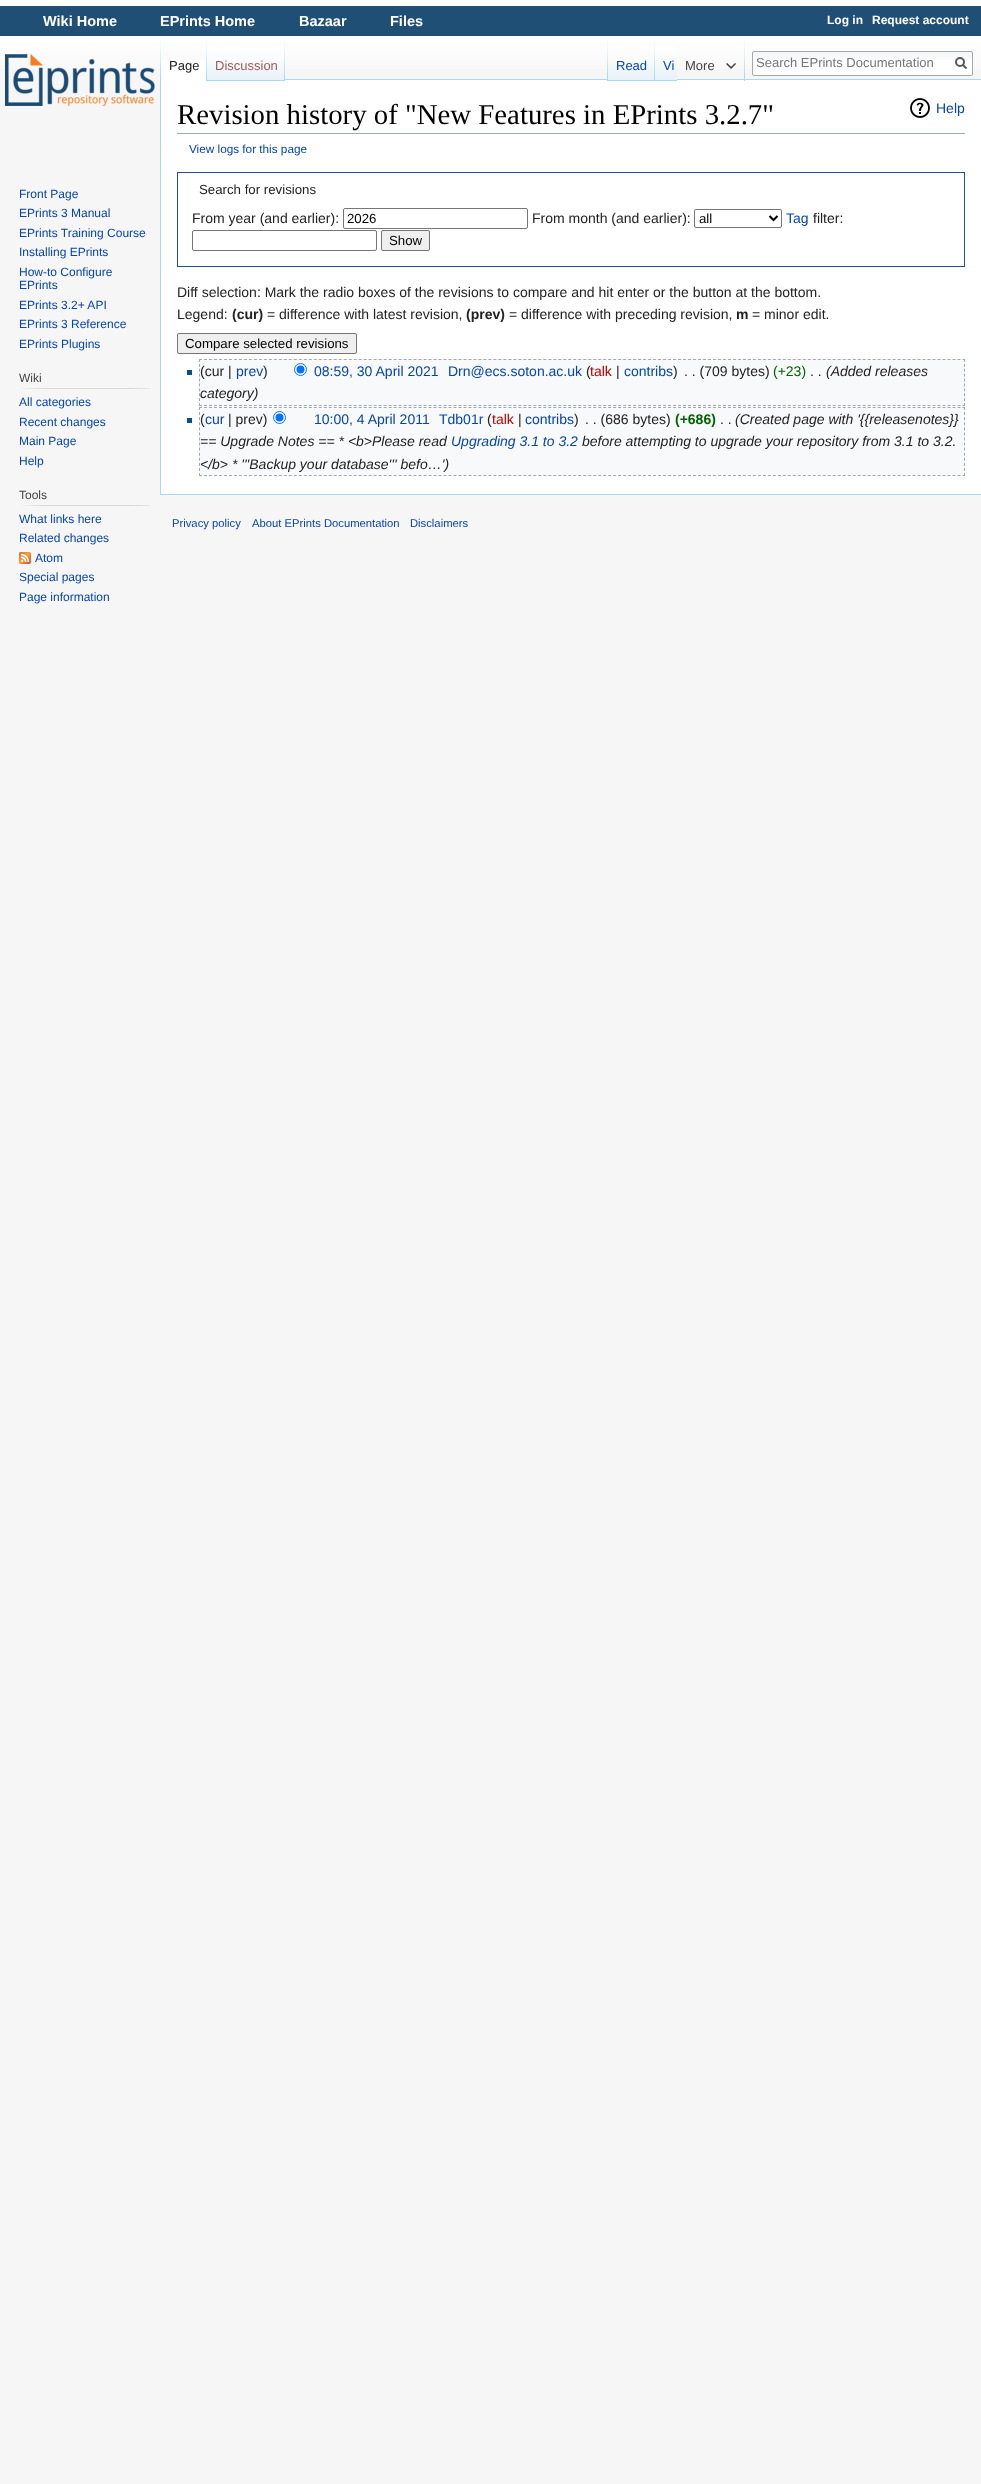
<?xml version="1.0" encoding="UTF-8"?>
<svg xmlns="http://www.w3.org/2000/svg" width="981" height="2484">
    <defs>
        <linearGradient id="g1" gradientUnits="userSpaceOnUse" x1="491" y1="0" x2="491" y2="80"><stop offset="0.5" stop-color="#FFFFFF"/><stop offset="1" stop-color="#F6F6F6"/></linearGradient>
    </defs>
    <rect width="100%" height="100%" fill="#F6F6F6"/>
    <rect x="0" y="0" width="981" height="69" fill="url(#g1)"/>
    <rect x="0" y="6" width="981" height="30" fill="#204F76"/>
    <text x="43" y="26" font-family="Liberation Sans" font-size="14.5" font-weight="700" fill="#FFFFFF">Wiki Home</text>
    <text x="160" y="26" font-family="Liberation Sans" font-size="14.5" font-weight="700" fill="#FFFFFF">EPrints Home</text>
    <text x="299" y="26" font-family="Liberation Sans" font-size="14.5" font-weight="700" fill="#FFFFFF">Bazaar</text>
    <text x="390" y="26" font-family="Liberation Sans" font-size="14.5" font-weight="700" fill="#FFFFFF">Files</text>
    <text x="827" y="24" font-family="Liberation Sans" font-size="12" font-weight="700" fill="#FFFFFF">Log in</text>
    <text x="872" y="24" font-family="Liberation Sans" font-size="12" font-weight="700" fill="#FFFFFF">Request account</text>
    <image x="160" y="41" width="1" height="38" href="img_01.png"/>
    <rect x="161" y="60" width="45" height="20" fill="#FFFFFF"/>
    <rect x="161" y="80" width="820" height="414" fill="#FFFFFF"/>
    <image x="206" y="41" width="1" height="40" href="img_02.png"/>
    <text x="169" y="70" font-family="Liberation Sans" font-size="13" fill="#222222">Page</text>
    <image x="207" y="41" width="78" height="40" href="img_03.png"/>
    <image x="284" y="41" width="1" height="39" href="img_04.png"/>
    <text x="215" y="70" font-family="Liberation Sans" font-size="13" fill="#A55858">Discussion</text>
    <rect x="285" y="79" width="696" height="1" fill="#A7D7F9"/>
    <image x="607" y="41" width="1" height="40" href="img_02.png"/>
    <image x="608" y="63" width="47" height="18" href="img_05.png"/>
    <image x="654" y="41" width="1" height="39" href="img_04.png"/>
    <text x="616" y="70" font-family="Liberation Sans" font-size="13" fill="#0645AD">Read</text>
    <image x="655" y="41" width="22" height="40" href="img_06.png"/>
    <text x="663" y="70" font-family="Liberation Sans" font-size="13" fill="#0645AD">Vi</text>
    <image x="744" y="41" width="1" height="40" href="img_02.png"/>
    <text x="685" y="70" font-family="Liberation Sans" font-size="13" fill="#444444">More</text>
    <image x="726" y="63" width="10" height="6" href="img_07.png"/>
    <rect x="752" y="51" width="221" height="25" rx="2" fill="#FFFFFF"/>
    <image x="752" y="52" width="221" height="8" href="img_08.png"/>
    <rect x="752.5" y="51.5" width="220" height="24" rx="1.5" fill="none" stroke="#A2A9B1"/>
    <text x="756" y="67" font-family="Liberation Sans" font-size="13" fill="#72777D">Search EPrints Documentation</text>
    <path d="M 966.5 68.5 L 962.5 64.5" fill="none" stroke="#54595D" stroke-width="2"/>
    <circle cx="960" cy="62" r="4" fill="none" stroke="#54595D" stroke-width="2"/>
    <image x="5" y="54" width="150" height="52" href="img_09.png"/>
    <text font-family="Liberation Sans" font-size="12" fill="#0645AD">
        <tspan x="19" y="198">Front Page</tspan>
        <tspan x="19" y="217">EPrints 3 Manual</tspan>
        <tspan x="19" y="237">EPrints Training Course</tspan>
        <tspan x="19" y="256">Installing EPrints</tspan>
        <tspan x="19" y="276">How-to Configure</tspan>
        <tspan x="19" y="289">EPrints</tspan>
        <tspan x="19" y="309">EPrints 3.2+ API</tspan>
        <tspan x="19" y="328">EPrints 3 Reference</tspan>
        <tspan x="19" y="348">EPrints Plugins</tspan>
    </text>
    <text x="19" y="382" font-family="Liberation Sans" font-size="12" fill="#444444">Wiki</text>
    <image x="22" y="388" width="128" height="1" href="img_10.png"/>
    <text font-family="Liberation Sans" font-size="12" fill="#0645AD">
        <tspan x="19" y="406">All categories</tspan>
        <tspan x="19" y="426">Recent changes</tspan>
        <tspan x="19" y="445">Main Page</tspan>
        <tspan x="19" y="465">Help</tspan>
    </text>
    <text x="19" y="499" font-family="Liberation Sans" font-size="12" fill="#444444">Tools</text>
    <image x="22" y="505" width="128" height="1" href="img_10.png"/>
    <text font-family="Liberation Sans" font-size="12" fill="#0645AD">
        <tspan x="19" y="523">What links here</tspan>
        <tspan x="19" y="542">Related changes</tspan>
    </text>
    <image x="19" y="552" width="12" height="12" href="img_11.png"/>
    <text x="35" y="562" font-family="Liberation Sans" font-size="12" fill="#0645AD">Atom</text>
    <text font-family="Liberation Sans" font-size="12" fill="#0645AD">
        <tspan x="19" y="581">Special pages</tspan>
        <tspan x="19" y="601">Page information</tspan>
    </text>
    <rect x="160" y="494" width="821" height="1" fill="#A7D7F9"/>
    <rect x="160" y="79" width="1" height="416" fill="#A7D7F9"/>
    <rect x="177" y="133" width="788" height="1" fill="#A2A9B1"/>
    <text x="177" y="124" font-family="Liberation Serif" font-size="28.8" fill="#000000">Revision history of "New Features in EPrints 3.2.7"</text>
    <image x="910" y="98" width="20" height="20" href="img_12.png"/>
    <text x="936" y="113" font-family="Liberation Sans" font-size="14" fill="#0645AD">Help</text>
    <text x="189" y="153" font-family="Liberation Sans" font-size="11.75" fill="#0645AD">View logs for this page</text>
    <rect x="177.5" y="172.5" width="787" height="94" fill="none" stroke="#2A4B8D"/>
    <text x="199" y="194" font-family="Liberation Sans" font-size="13.25" fill="#222222">Search for revisions</text>
    <text x="192" y="223" font-family="Liberation Sans" font-size="14" fill="#222222">From year (and earlier):</text>
    <rect x="343.5" y="208.5" width="184" height="20" rx="1.5" fill="none" stroke="#767676"/>
    <text x="347" y="223" font-family="Liberation Sans" font-size="13.25" fill="#000000">2026</text>
    <text x="532" y="223" font-family="Liberation Sans" font-size="14" fill="#222222">From month (and earlier):</text>
    <rect x="694.5" y="209.5" width="87" height="18" rx="1.5" fill="none" stroke="#767676"/>
    <path d="M 769.5 216 L 773.5 220 L 777.5 216" fill="none" stroke="#000000" stroke-width="2"/>
    <text x="699" y="223" font-family="Liberation Sans" font-size="13.25" fill="#000000">all</text>
    <text x="786" y="223" font-family="Liberation Sans" font-size="14" fill="#0645AD">Tag</text>
    <text x="813" y="223" font-family="Liberation Sans" font-size="14" fill="#222222">filter:</text>
    <rect x="192.5" y="230.5" width="184" height="20" rx="1.5" fill="none" stroke="#767676"/>
    <rect x="381.5" y="230.5" width="48" height="20" rx="1.5" fill="#EFEFEF" stroke="#767676"/>
    <text x="389" y="245" font-family="Liberation Sans" font-size="13.25" fill="#000000">Show</text>
    <text font-family="Liberation Sans" font-size="14" fill="#222222">
        <tspan x="177" y="297">Diff selection: Mark the radio boxes of the revisions to compare and hit enter or the button at the bottom.</tspan>
        <tspan x="177" y="319">Legend:</tspan>
    </text>
    <text x="232" y="319" font-family="Liberation Sans" font-size="14" font-weight="700" fill="#222222">(cur)</text>
    <text x="267" y="319" font-family="Liberation Sans" font-size="14" fill="#222222">= difference with latest revision,</text>
    <text x="466" y="319" font-family="Liberation Sans" font-size="14" font-weight="700" fill="#222222">(prev)</text>
    <text x="509" y="319" font-family="Liberation Sans" font-size="14" fill="#222222">= difference with preceding revision,</text>
    <text x="736" y="319" font-family="Liberation Sans" font-size="14" font-weight="700" fill="#222222">m</text>
    <text x="752" y="319" font-family="Liberation Sans" font-size="14" fill="#222222">= minor edit.</text>
    <rect x="177.5" y="333.5" width="179" height="20" rx="1.5" fill="#EFEFEF" stroke="#767676"/>
    <text x="185" y="348" font-family="Liberation Sans" font-size="13.25" fill="#000000">Compare selected revisions</text>
    <rect x="199" y="359" width="766" height="47" fill="#F8F9FA"/>
    <path d="M 199 359.5 H 965" fill="none" stroke="#A2A9B1" stroke-dasharray="3 1.99"/>
    <path d="M 964.5 359 V 406" fill="none" stroke="#A2A9B1" stroke-dasharray="3 1.89"/>
    <path d="M 199 405.5 H 965" fill="none" stroke="#A2A9B1" stroke-dasharray="3 1.99"/>
    <path d="M 199.5 359 V 406" fill="none" stroke="#A2A9B1" stroke-dasharray="3 1.89"/>
    <rect x="187" y="370" width="5" height="5" fill="#00528C"/>
    <text x="200" y="376" font-family="Liberation Sans" font-size="14" fill="#222222">(cur |</text>
    <text x="236" y="376" font-family="Liberation Sans" font-size="14" fill="#0645AD">prev</text>
    <text x="263" y="376" font-family="Liberation Sans" font-size="14" fill="#222222">)</text>
    <circle cx="300.5" cy="369.5" r="6" fill="#FFFFFF" stroke="#0075FF"/>
    <circle cx="300.5" cy="369.5" r="4" fill="#0075FF"/>
    <text x="314" y="376" font-family="Liberation Sans" font-size="14" fill="#0645AD">08:59, 30 April 2021</text>
    <text x="448" y="376" font-family="Liberation Sans" font-size="14" fill="#0645AD">Drn@ecs.soton.ac.uk</text>
    <text x="586" y="376" font-family="Liberation Sans" font-size="14" fill="#222222">(</text>
    <text x="590" y="376" font-family="Liberation Sans" font-size="14" fill="#BA0000">talk</text>
    <text x="616" y="376" font-family="Liberation Sans" font-size="14" fill="#222222">|</text>
    <text x="624" y="376" font-family="Liberation Sans" font-size="14" fill="#0645AD">contribs</text>
    <text x="673" y="376" font-family="Liberation Sans" font-size="14" fill="#222222">)</text>
    <text x="684" y="376" font-family="Liberation Sans" font-size="14" fill="#222222">. . (709 bytes)</text>
    <text x="773" y="376" font-family="Liberation Sans" font-size="14" fill="#006400">(+23)</text>
    <text x="810" y="376" font-family="Liberation Sans" font-size="14" fill="#222222">. .</text>
    <text x="826" y="376" font-family="Liberation Sans" font-size="14" font-style="italic" fill="#222222">(Added releases</text>
    <text x="200" y="398" font-family="Liberation Sans" font-size="14" font-style="italic" fill="#222222">category)</text>
    <rect x="199" y="407" width="766" height="69" fill="#F8F9FA"/>
    <path d="M 199 407.5 H 965" fill="none" stroke="#A2A9B1" stroke-dasharray="3 1.99"/>
    <path d="M 964.5 407 V 476" fill="none" stroke="#A2A9B1" stroke-dasharray="3 2.08"/>
    <path d="M 199 475.5 H 965" fill="none" stroke="#A2A9B1" stroke-dasharray="3 1.99"/>
    <path d="M 199.5 407 V 476" fill="none" stroke="#A2A9B1" stroke-dasharray="3 2.08"/>
    <rect x="187" y="418" width="5" height="5" fill="#00528C"/>
    <text x="200" y="424" font-family="Liberation Sans" font-size="14" fill="#222222">(</text>
    <text x="205" y="424" font-family="Liberation Sans" font-size="14" fill="#0645AD">cur</text>
    <text x="228" y="424" font-family="Liberation Sans" font-size="14" fill="#222222">| prev)</text>
    <circle cx="279.5" cy="417.5" r="6" fill="#FFFFFF" stroke="#0075FF"/>
    <circle cx="279.5" cy="417.5" r="4" fill="#0075FF"/>
    <text x="314" y="424" font-family="Liberation Sans" font-size="14" fill="#0645AD">10:00, 4 April 2011</text>
    <text x="439" y="424" font-family="Liberation Sans" font-size="14" fill="#0645AD">Tdb01r</text>
    <text x="487" y="424" font-family="Liberation Sans" font-size="14" fill="#222222">(</text>
    <text x="492" y="424" font-family="Liberation Sans" font-size="14" fill="#BA0000">talk</text>
    <text x="518" y="424" font-family="Liberation Sans" font-size="14" fill="#222222">|</text>
    <text x="525" y="424" font-family="Liberation Sans" font-size="14" fill="#0645AD">contribs</text>
    <text x="574" y="424" font-family="Liberation Sans" font-size="14" fill="#222222">)</text>
    <text x="585" y="424" font-family="Liberation Sans" font-size="14" fill="#222222">. . (686 bytes)</text>
    <text x="675" y="424" font-family="Liberation Sans" font-size="14" font-weight="700" fill="#006400">(+686)</text>
    <text x="720" y="424" font-family="Liberation Sans" font-size="14" fill="#222222">. .</text>
    <text x="735" y="424" font-family="Liberation Sans" font-size="14" font-style="italic" fill="#222222">(Created page with '{{releasenotes}}</text>
    <text x="200" y="446" font-family="Liberation Sans" font-size="14" font-style="italic" fill="#222222">== Upgrade Notes == * &lt;b&gt;Please read</text>
    <text x="451" y="446" font-family="Liberation Sans" font-size="14" font-style="italic" fill="#0645AD">Upgrading 3.1 to 3.2</text>
    <text x="582" y="446" font-family="Liberation Sans" font-size="14" font-style="italic" fill="#222222">before attempting to upgrade your repository from 3.1 to 3.2.</text>
    <text x="200" y="469" font-family="Liberation Sans" font-size="14" font-style="italic" fill="#222222">&lt;/b&gt; * '''Backup your database''' befo…')</text>
    <text x="172" y="527" font-family="Liberation Sans" font-size="11.25" fill="#0645AD">Privacy policy</text>
    <text x="252" y="527" font-family="Liberation Sans" font-size="11.25" fill="#0645AD">About EPrints Documentation</text>
    <text x="410" y="527" font-family="Liberation Sans" font-size="11.25" fill="#0645AD">Disclaimers</text>
</svg>
